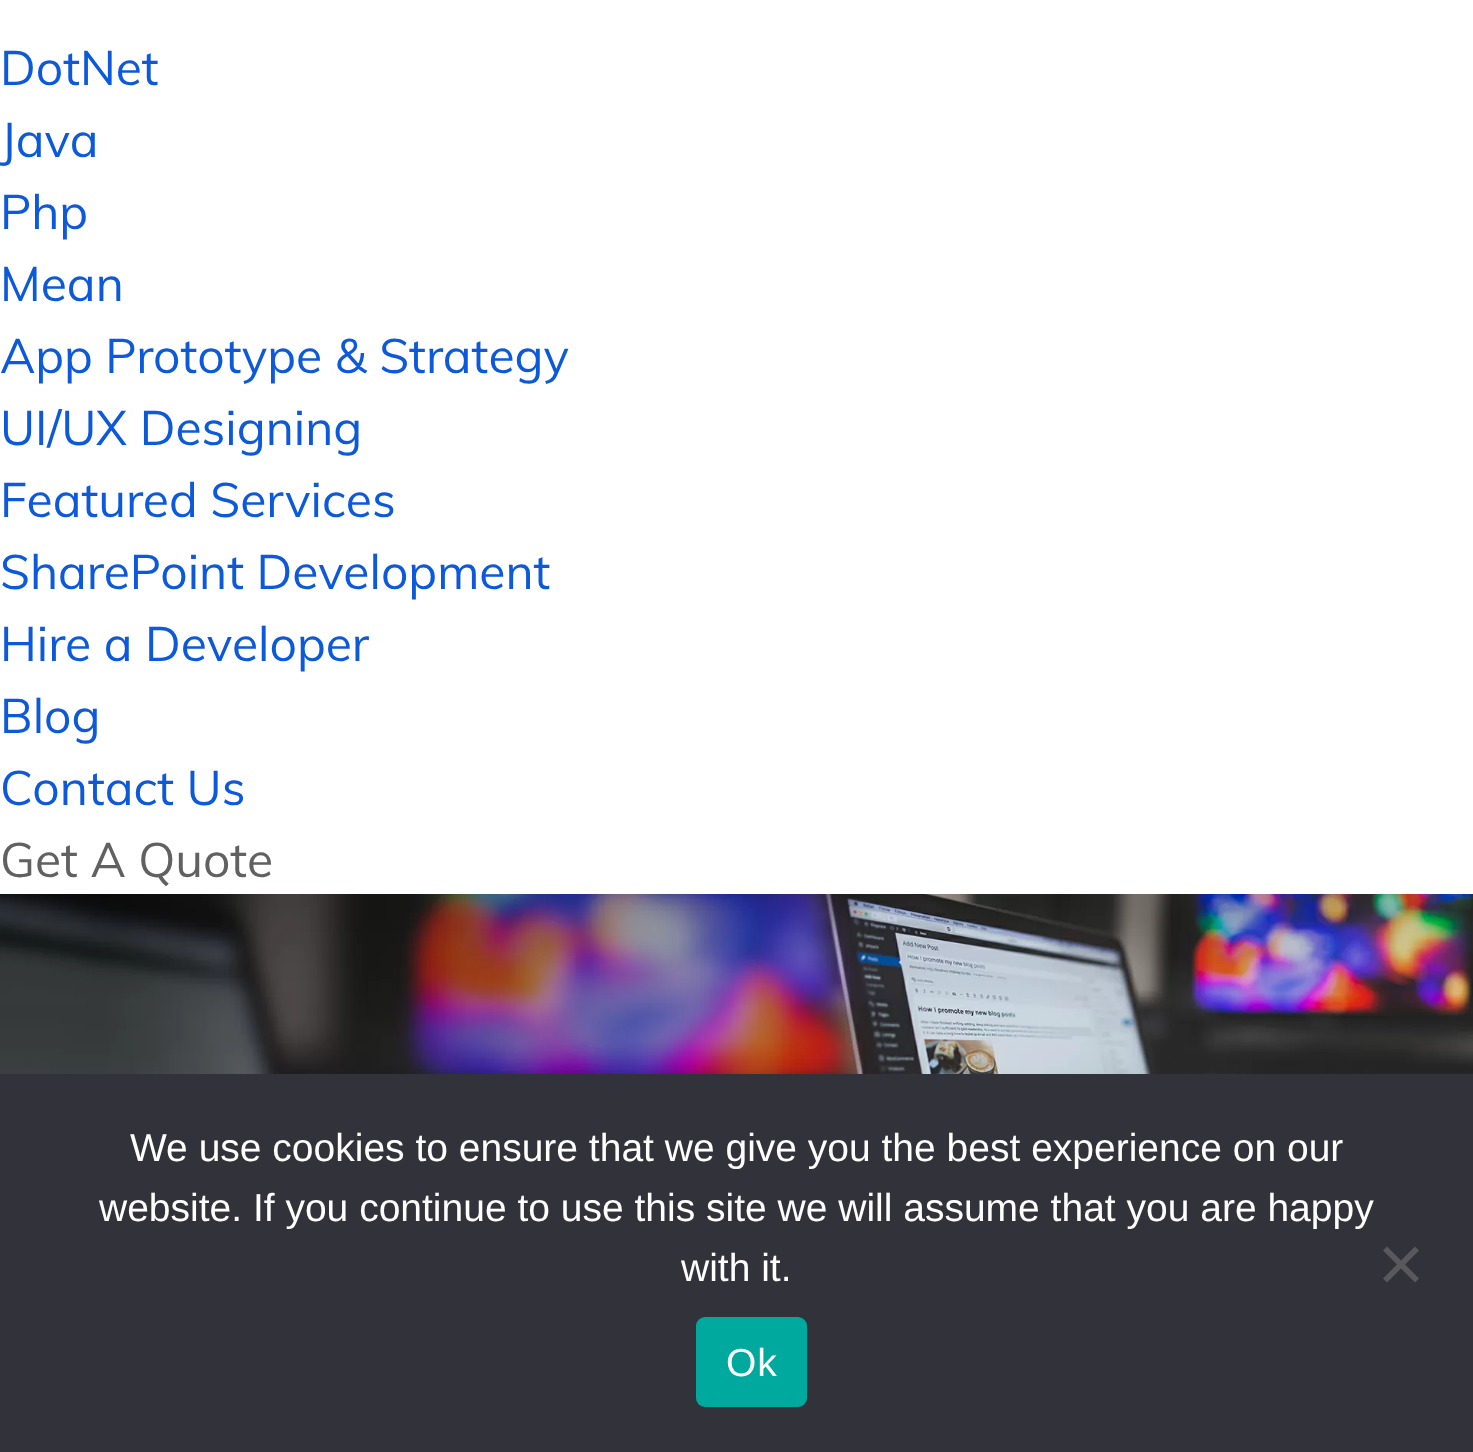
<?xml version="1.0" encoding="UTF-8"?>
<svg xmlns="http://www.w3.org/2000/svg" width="1473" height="1452">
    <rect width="100%" height="100%" fill="#FFFFFF"/>
    <text font-family="Muli" font-size="48" fill="#0C5ADB">
        <tspan x="0" y="85">DotNet</tspan>
        <tspan x="0" y="157">Java</tspan>
        <tspan x="0" y="229">Php</tspan>
        <tspan x="0" y="301">Mean</tspan>
        <tspan x="0" y="373">App Prototype &amp; Strategy</tspan>
        <tspan x="0" y="445">UI/UX Designing</tspan>
        <tspan x="0" y="517">Featured Services</tspan>
        <tspan x="0" y="589">SharePoint Development</tspan>
        <tspan x="0" y="661">Hire a Developer</tspan>
        <tspan x="0" y="733">Blog</tspan>
        <tspan x="0" y="805">Contact Us</tspan>
    </text>
    <text x="0" y="877" font-family="Muli" font-size="48" fill="#616161">Get A Quote</text>
    <image x="0" y="894" width="1473" height="180" href="img_01.png"/>
    <rect x="0" y="1074" width="1473" height="378" fill="#32323A"/>
    <text x="130" y="1161" font-family="Liberation Sans" font-size="39" fill="#FFFFFF">We use cookies to ensure that we give you the best experience on our</text>
    <text x="99" y="1221" font-family="Liberation Sans" font-size="39" fill="#FFFFFF">website. If you continue to use this site we will assume that you are happy</text>
    <text x="681" y="1281" font-family="Liberation Sans" font-size="39" fill="#FFFFFF">with it.</text>
    <path d="M 1415 1246.5 L 1419 1250.5 L 1387 1282.5 L 1383 1278.5 Z" fill="#59595D"/>
    <path d="M 1383 1250.5 L 1387 1246.5 L 1419 1278.5 L 1415 1282.5 Z" fill="#59595D"/>
    <rect x="696" y="1317" width="111" height="90" rx="9" fill="#00A99D"/>
    <text x="726" y="1376" font-family="Liberation Sans" font-size="39" letter-spacing="1" fill="#FFFFFF">Ok</text>
</svg>
